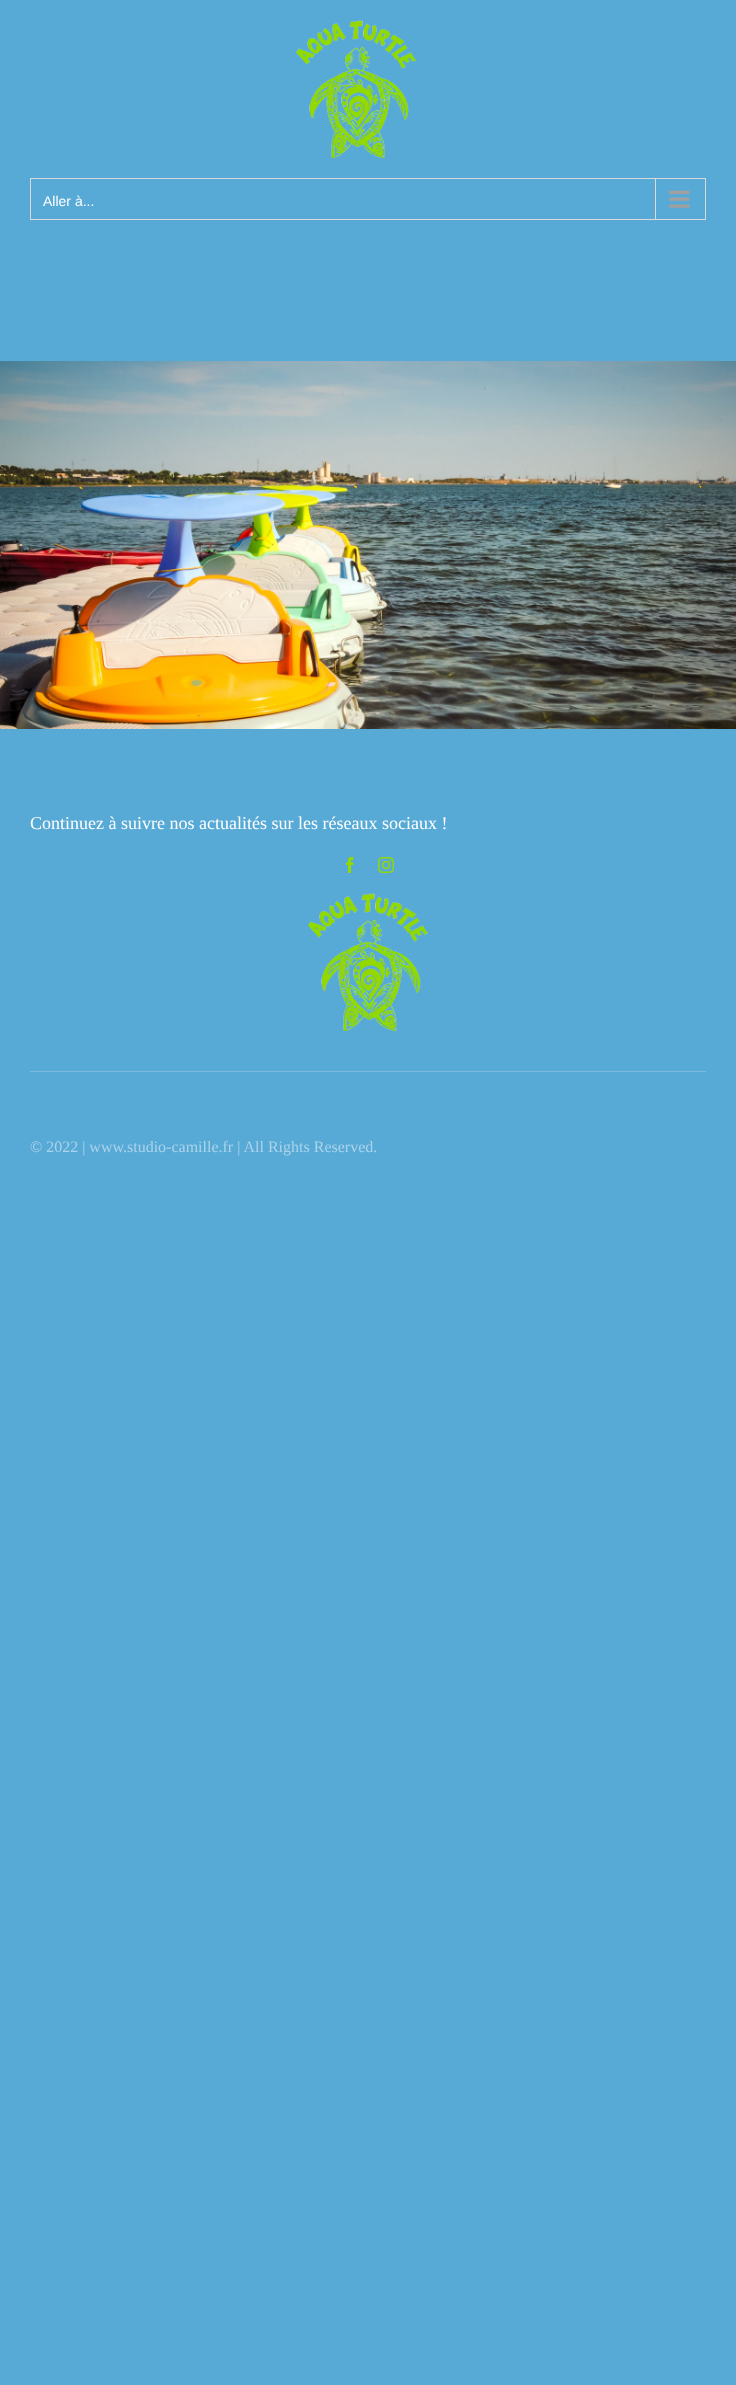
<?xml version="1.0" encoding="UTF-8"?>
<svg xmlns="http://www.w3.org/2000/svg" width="736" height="2385">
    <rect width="100%" height="100%" fill="#57A9D6"/>
    <image x="296" y="20" width="120" height="138" href="img_01.png"/>
    <rect x="30.5" y="178.5" width="675" height="41" fill="none" stroke="#D9D9D9"/>
    <text x="43" y="206" font-family="Liberation Sans" font-size="14" fill="#FFFFFF">Aller à...</text>
    <rect x="655" y="179" width="1" height="40" fill="#D9D9D9"/>
    <image x="669" y="190" width="21" height="18" href="img_02.png"/>
    <image x="0" y="361" width="736" height="368" href="img_03.png"/>
    <text x="30" y="829" font-family="Liberation Serif" font-size="18" fill="#FFFFFF">Continuez à suivre nos actualités sur les réseaux sociaux !</text>
    <image x="346" y="857" width="8" height="16" href="img_04.png"/>
    <image x="378" y="857" width="16" height="16" href="img_05.png"/>
    <image x="308" y="893" width="120" height="138" href="img_01.png"/>
    <rect x="30" y="1071" width="676" height="1" fill="#79BADE"/>
    <text x="30" y="1152" font-family="Liberation Serif" font-size="16" fill="#ABD4EB">© 2022 | www.studio-camille.fr | All Rights Reserved.</text>
</svg>
